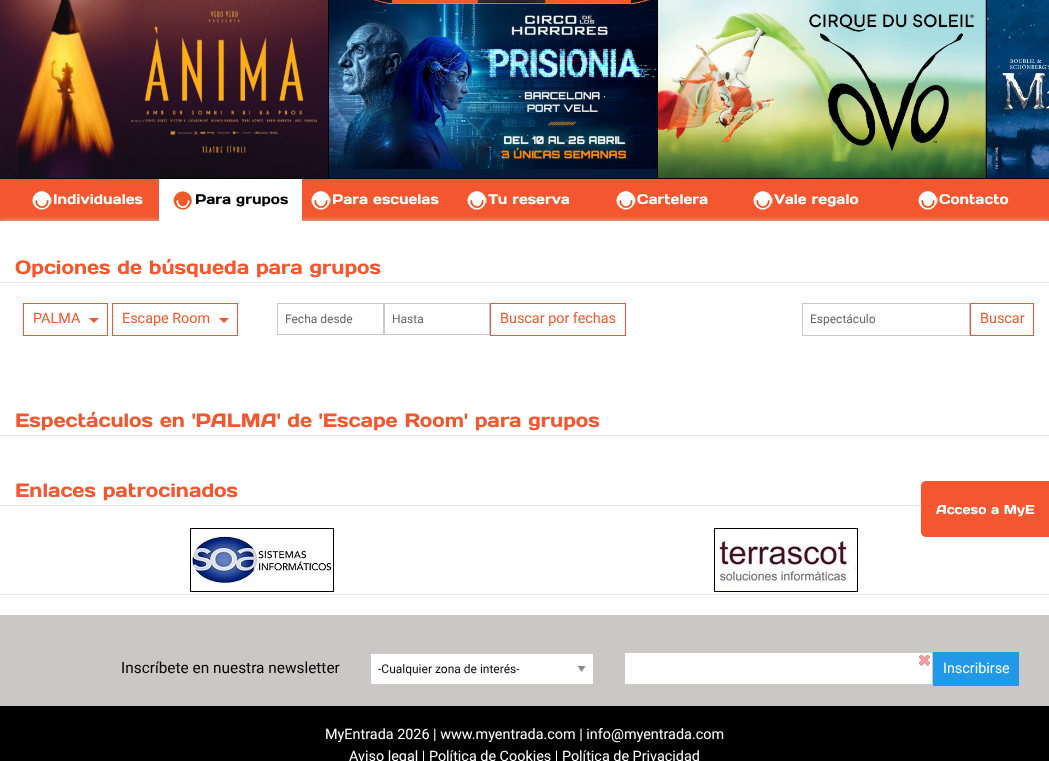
<?xml version="1.0" encoding="UTF-8"?>
<svg xmlns="http://www.w3.org/2000/svg" width="1049" height="761">
    <defs>
        <filter id="blur1" x="-50%" y="-200%" width="200%" height="500%"><feGaussianBlur stdDeviation="2.5"/></filter>
    </defs>
    <rect width="100%" height="100%" fill="#000000"/>
    <image x="0" y="0" width="328" height="178" href="img_01.png"/>
    <image x="329" y="0" width="328" height="178" href="img_02.png"/>
    <image x="658" y="0" width="328" height="178" href="img_03.png"/>
    <image x="986" y="0" width="63" height="178" href="img_04.png"/>
    <image x="372" y="0" width="279" height="5" href="img_05.png"/>
    <rect x="0" y="179" width="1049" height="42" fill="#F4572F"/>
    <image x="32" y="191" width="20" height="19" href="img_06.png"/>
    <text x="53" y="204" font-family="Days One" font-size="14" fill="#FFFFFF">Individuales</text>
    <rect x="0" y="221" width="1049" height="394" fill="#CCCCCC" filter="url(#blur1)"/>
    <rect x="159" y="179" width="143" height="42" fill="#FFFFFF"/>
    <image x="173" y="191" width="19" height="19" href="img_07.png"/>
    <text x="195" y="204" font-family="Days One" font-size="14" fill="#000000">Para grupos</text>
    <image x="311" y="191" width="20" height="19" href="img_06.png"/>
    <text x="332" y="204" font-family="Days One" font-size="14" fill="#FFFFFF">Para escuelas</text>
    <image x="467" y="191" width="20" height="19" href="img_06.png"/>
    <text x="488" y="204" font-family="Days One" font-size="14" fill="#FFFFFF">Tu reserva</text>
    <image x="616" y="191" width="20" height="19" href="img_06.png"/>
    <text x="637" y="204" font-family="Days One" font-size="14" fill="#FFFFFF">Cartelera</text>
    <image x="753" y="191" width="20" height="19" href="img_06.png"/>
    <text x="774" y="204" font-family="Days One" font-size="14" fill="#FFFFFF">Vale regalo</text>
    <image x="918" y="191" width="20" height="19" href="img_06.png"/>
    <text x="939" y="204" font-family="Days One" font-size="14" fill="#FFFFFF">Contacto</text>
    <rect x="0" y="221" width="1049" height="394" fill="#FFFFFF"/>
    <text x="15" y="274" font-family="Days One" font-size="19.2" fill="#F4572F">Opciones de búsqueda para grupos</text>
    <rect x="0" y="282" width="1049" height="1" fill="#E6E6E6"/>
    <rect x="23.5" y="303.5" width="84" height="32" fill="none" stroke="#F4572F"/>
    <text x="33" y="323" font-family="Roboto" font-size="14.4" fill="#F4572F">PALMA</text>
    <path d="M 89 318 H 99 L 94 323 Z" fill="#F4572F"/>
    <rect x="112.5" y="303.5" width="125" height="32" fill="none" stroke="#F4572F"/>
    <text x="122" y="323" font-family="Roboto" font-size="14.4" fill="#F4572F">Escape Room</text>
    <path d="M 219 318 H 229 L 224 323 Z" fill="#F4572F"/>
    <rect x="277.5" y="303.5" width="106" height="31" fill="none" stroke="#CACACA"/>
    <text x="285" y="323" font-family="Roboto" font-size="12" fill="#656565">Fecha desde</text>
    <rect x="384.5" y="303.5" width="105" height="31" fill="none" stroke="#CACACA"/>
    <text x="392" y="323" font-family="Roboto" font-size="12" fill="#656565">Hasta</text>
    <rect x="490.5" y="303.5" width="135" height="32" fill="none" stroke="#F4572F"/>
    <text x="500" y="323" font-family="Roboto" font-size="14.4" fill="#F4572F">Buscar por fechas</text>
    <rect x="802.5" y="303.5" width="167" height="32" fill="none" stroke="#CACACA"/>
    <text x="810" y="323" font-family="Roboto" font-size="12" fill="#656565">Espectáculo</text>
    <rect x="970.5" y="303.5" width="63" height="32" fill="none" stroke="#F4572F"/>
    <text x="980" y="323" font-family="Roboto" font-size="14.4" fill="#F4572F">Buscar</text>
    <text x="15" y="427" font-family="Days One" font-size="19.2" fill="#F4572F">Espectáculos en 'PALMA' de 'Escape Room' para grupos</text>
    <rect x="0" y="435" width="1049" height="1" fill="#E6E6E6"/>
    <text x="15" y="497" font-family="Days One" font-size="19.2" fill="#F4572F">Enlaces patrocinados</text>
    <rect x="0" y="505" width="921" height="1" fill="#E6E6E6"/>
    <image x="189" y="526" width="145" height="66" href="img_08.png"/>
    <image x="713" y="528" width="145" height="66" href="img_09.png"/>
    <rect x="0" y="594" width="1049" height="1" fill="#E6E6E6"/>
    <rect x="921" y="481" width="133" height="56" rx="5" fill="#F4572F"/>
    <text x="936" y="514" font-family="Days One" font-size="12.75" fill="#FFFFFF">Acceso a MyE</text>
    <rect x="0" y="615" width="1049" height="91" fill="#CCC7C7"/>
    <text x="121" y="673" font-family="Roboto" font-size="15.4" fill="#000000">Inscríbete en nuestra newsletter</text>
    <rect x="371" y="654" width="222" height="30" fill="#FEFEFE"/>
    <path d="M 577.5 666 H 585.5 L 581.5 672 Z" fill="#8A8A8A"/>
    <rect x="370.5" y="653.5" width="223" height="31" fill="none" stroke="#CACACA"/>
    <text x="378" y="673" font-family="Roboto" font-size="12" fill="#0A0A0A">-Cualquier zona de interés-</text>
    <rect x="625" y="653" width="307" height="31" fill="#FEFEFE"/>
    <image x="919" y="654" width="11" height="12" href="img_10.png"/>
    <rect x="624.5" y="652.5" width="308" height="32" fill="none" stroke="#CACACA"/>
    <rect x="933" y="652" width="86" height="34" fill="#2199E8"/>
    <text x="943" y="673" font-family="Roboto" font-size="14.4" fill="#FFFFFF">Inscribirse</text>
    <text x="325" y="739" font-family="Roboto" font-size="14.4" fill="#FFFFFF">MyEntrada 2026 | www.myentrada.com | info@myentrada.com</text>
    <text x="349" y="761" font-family="Roboto" font-size="14.4" fill="#FFFFFF">Aviso legal | Política de Cookies | Política de Privacidad</text>
</svg>
